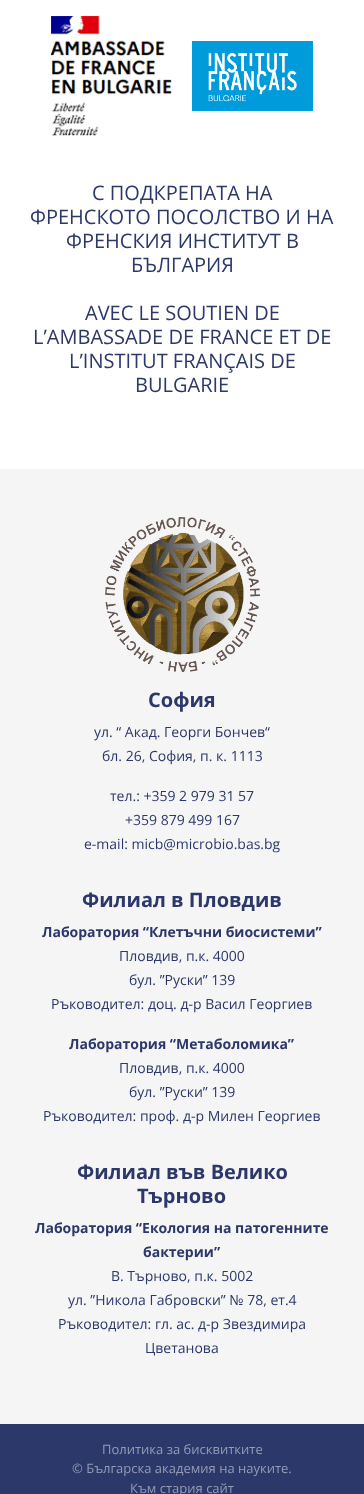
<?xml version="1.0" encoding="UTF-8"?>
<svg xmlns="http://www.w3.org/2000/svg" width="364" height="1494">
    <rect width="100%" height="100%" fill="#FFFFFF"/>
    <image x="51" y="16" width="121" height="120" href="img_01.png"/>
    <image x="192" y="41" width="121" height="70" href="img_02.png"/>
    <text x="92" y="200" font-family="Open Sans" font-size="20" fill="#2C386A">С ПОДКРЕПАТА НА</text>
    <text x="30" y="224" font-family="Open Sans" font-size="20" fill="#2C386A">ФРЕНСКОТО ПОСОЛСТВО И НА</text>
    <text x="66" y="248" font-family="Open Sans" font-size="20" fill="#2C386A">ФРЕНСКИЯ ИНСТИТУТ В</text>
    <text x="131" y="272" font-family="Open Sans" font-size="20" fill="#2C386A">БЪЛГАРИЯ</text>
    <text x="85" y="320" font-family="Open Sans" font-size="20" fill="#2C386A">AVEC LE SOUTIEN DE</text>
    <text x="33" y="344" font-family="Open Sans" font-size="20" fill="#2C386A">L’AMBASSADE DE FRANCE ET DE</text>
    <text x="69" y="368" font-family="Open Sans" font-size="20" fill="#2C386A">L’INSTITUT FRANÇAIS DE</text>
    <text x="135" y="392" font-family="Open Sans" font-size="20" fill="#2C386A">BULGARIE</text>
    <rect x="0" y="469" width="364" height="955" fill="#F5F5F5"/>
    <image x="105" y="517" width="155" height="155" href="img_03.png"/>
    <text x="148" y="707" font-family="Open Sans" font-size="20" font-weight="700" fill="#2C386A">София</text>
    <text x="94" y="737" font-family="Open Sans" font-size="14" fill="#2C386A">ул. “ Акад. Георги Бончев“</text>
    <text x="102" y="761" font-family="Open Sans" font-size="14" fill="#2C386A">бл. 26, София, п. к. 1113</text>
    <text x="110" y="801" font-family="Open Sans" font-size="14" fill="#2C386A">тел.: +359 2 979 31 57</text>
    <text x="125" y="825" font-family="Open Sans" font-size="14" fill="#2C386A">+359 879 499 167</text>
    <text x="84" y="849" font-family="Open Sans" font-size="14" fill="#2C386A">e-mail: micb@microbio.bas.bg</text>
    <text x="82" y="907" font-family="Open Sans" font-size="20" font-weight="700" fill="#2C386A">Филиал в Пловдив</text>
    <text x="42" y="937" font-family="Open Sans" font-size="14" font-weight="700" fill="#2C386A">Лаборатория “Клетъчни биосистеми”</text>
    <text x="119" y="961" font-family="Open Sans" font-size="14" fill="#2C386A">Пловдив, п.к. 4000</text>
    <text x="129" y="985" font-family="Open Sans" font-size="14" fill="#2C386A">бул. ”Руски” 139</text>
    <text x="51" y="1009" font-family="Open Sans" font-size="14" fill="#2C386A">Ръководител: доц. д-р Васил Георгиев</text>
    <text x="69" y="1049" font-family="Open Sans" font-size="14" font-weight="700" fill="#2C386A">Лаборатория “Метаболомика”</text>
    <text x="119" y="1073" font-family="Open Sans" font-size="14" fill="#2C386A">Пловдив, п.к. 4000</text>
    <text x="129" y="1097" font-family="Open Sans" font-size="14" fill="#2C386A">бул. ”Руски” 139</text>
    <text x="43" y="1121" font-family="Open Sans" font-size="14" fill="#2C386A">Ръководител: проф. д-р Милен Георгиев</text>
    <text x="77" y="1179" font-family="Open Sans" font-size="20" font-weight="700" fill="#2C386A">Филиал във Велико</text>
    <text x="137" y="1203" font-family="Open Sans" font-size="20" font-weight="700" fill="#2C386A">Търново</text>
    <text x="35" y="1233" font-family="Open Sans" font-size="14" font-weight="700" fill="#2C386A">Лаборатория “Екология на патогенните</text>
    <text x="143" y="1257" font-family="Open Sans" font-size="14" font-weight="700" fill="#2C386A">бактерии”</text>
    <text x="111" y="1281" font-family="Open Sans" font-size="14" fill="#2C386A">В. Търново, п.к. 5002</text>
    <text x="68" y="1305" font-family="Open Sans" font-size="14" fill="#2C386A">ул. ”Никола Габровски” № 78, ет.4</text>
    <text x="58" y="1329" font-family="Open Sans" font-size="14" fill="#2C386A">Ръководител: гл. ас. д-р Звездимира</text>
    <text x="145" y="1353" font-family="Open Sans" font-size="14" fill="#2C386A">Цветанова</text>
    <rect x="0" y="1424" width="364" height="70" fill="#2C386A"/>
    <text x="102" y="1454" font-family="Open Sans" font-size="13" fill="#969CB5">Политика за бисквитките</text>
    <text x="72" y="1473" font-family="Open Sans" font-size="13" fill="#969CB5">© Българска академия на науките.</text>
    <text x="130" y="1493" font-family="Open Sans" font-size="13" fill="#969CB5">Към стария сайт</text>
</svg>
